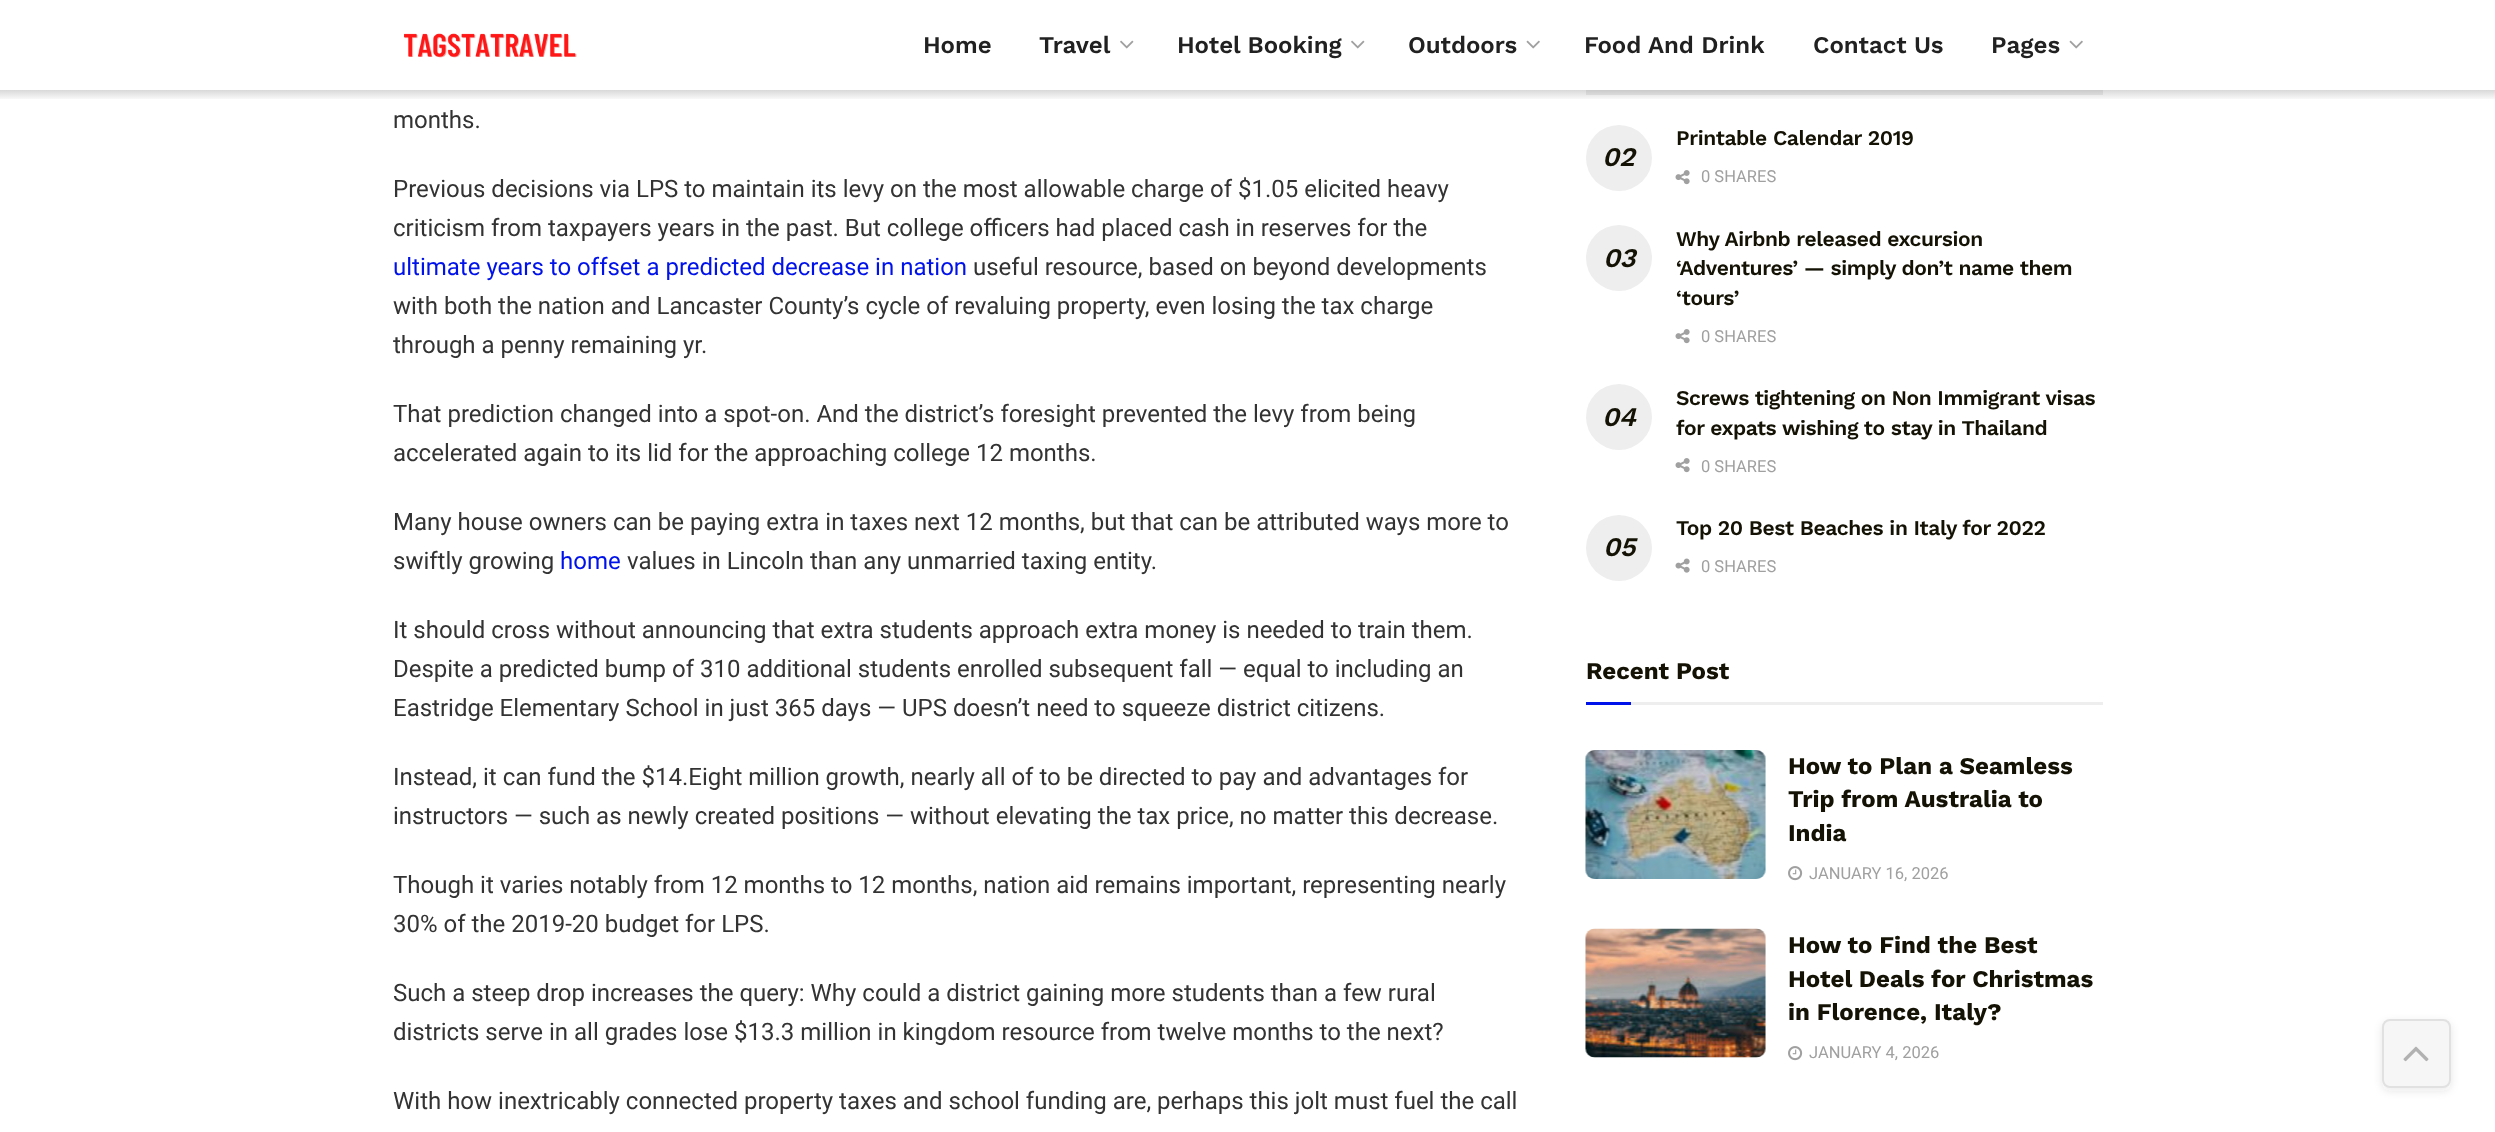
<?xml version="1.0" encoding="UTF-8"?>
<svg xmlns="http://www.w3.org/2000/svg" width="2495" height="1132">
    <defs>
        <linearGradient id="g1" gradientUnits="userSpaceOnUse" x1="1248" y1="90" x2="1248" y2="101"><stop offset="0" stop-color="#000000" stop-opacity="0.15"/><stop offset="1" stop-color="#000000" stop-opacity="0"/></linearGradient>
        <clipPath id="clip1"><path d="M 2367 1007 H 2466 V 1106 H 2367 Z M 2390 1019 H 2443 C 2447.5 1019 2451 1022.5 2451 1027 V 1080 C 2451 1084.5 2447.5 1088 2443 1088 H 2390 C 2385.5 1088 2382 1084.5 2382 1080 V 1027 C 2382 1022.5 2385.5 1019 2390 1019 Z" clip-rule="evenodd"/></clipPath>
        <filter id="blur1" x="-50%" y="-200%" width="200%" height="500%"><feGaussianBlur stdDeviation="4.5"/></filter>
    </defs>
    <rect width="100%" height="100%" fill="#FFFFFF"/>
    <image x="404" y="33" width="173" height="25" href="img_01.png"/>
    <text x="923" y="53" font-family="Work Sans" font-size="24" font-weight="600" fill="#212121">Home</text>
    <text x="1039" y="53" font-family="Work Sans" font-size="24" font-weight="600" fill="#212121">Travel</text>
    <image x="1120" y="40" width="14" height="9" href="img_02.png"/>
    <text x="1177" y="53" font-family="Work Sans" font-size="24" font-weight="600" fill="#212121">Hotel Booking</text>
    <image x="1351" y="40" width="14" height="9" href="img_02.png"/>
    <text x="1408" y="53" font-family="Work Sans" font-size="24" font-weight="600" fill="#212121">Outdoors</text>
    <image x="1526" y="40" width="14" height="9" href="img_03.png"/>
    <text x="1584" y="53" font-family="Work Sans" font-size="24" font-weight="600" fill="#212121">Food And Drink</text>
    <text x="1813" y="53" font-family="Work Sans" font-size="24" font-weight="600" fill="#212121">Contact Us</text>
    <text x="1991" y="53" font-family="Work Sans" font-size="24" font-weight="600" fill="#212121">Pages</text>
    <image x="2069" y="40" width="14" height="9" href="img_03.png"/>
    <rect x="1586" y="90" width="517" height="5" fill="#EEEEEE"/>
    <rect x="0" y="90" width="2495" height="9" fill="url(#g1)"/>
    <text x="393" y="128" font-family="Roboto" font-size="24" fill="#333333">months.</text>
    <text font-family="Roboto" font-size="24" fill="#333333">
        <tspan x="393" y="197">Previous decisions via LPS to maintain its levy on the most allowable charge of $1.05 elicited heavy</tspan>
        <tspan x="393" y="236">criticism from taxpayers years in the past. But college officers had placed cash in reserves for the</tspan>
    </text>
    <text x="393" y="275" font-family="Roboto" font-size="24" fill="#0012EA">ultimate years to offset a predicted decrease in nation</text>
    <text x="973" y="275" font-family="Roboto" font-size="24" fill="#333333">useful resource, based on beyond developments</text>
    <text font-family="Roboto" font-size="24" fill="#333333">
        <tspan x="393" y="314">with both the nation and Lancaster County’s cycle of revaluing property, even losing the tax charge</tspan>
        <tspan x="393" y="353">through a penny remaining yr.</tspan>
    </text>
    <text font-family="Roboto" font-size="24" fill="#333333">
        <tspan x="393" y="422">That prediction changed into a spot-on. And the district’s foresight prevented the levy from being</tspan>
        <tspan x="393" y="461">accelerated again to its lid for the approaching college 12 months.</tspan>
    </text>
    <text font-family="Roboto" font-size="24" fill="#333333">
        <tspan x="393" y="530">Many house owners can be paying extra in taxes next 12 months, but that can be attributed ways more to</tspan>
        <tspan x="393" y="569">swiftly growing</tspan>
    </text>
    <text x="560" y="569" font-family="Roboto" font-size="24" fill="#0012EA">home</text>
    <text x="627" y="569" font-family="Roboto" font-size="24" fill="#333333">values in Lincoln than any unmarried taxing entity.</text>
    <text font-family="Roboto" font-size="24" fill="#333333">
        <tspan x="393" y="638">It should cross without announcing that extra students approach extra money is needed to train them.</tspan>
        <tspan x="393" y="677">Despite a predicted bump of 310 additional students enrolled subsequent fall — equal to including an</tspan>
        <tspan x="393" y="716">Eastridge Elementary School in just 365 days — UPS doesn’t need to squeeze district citizens.</tspan>
    </text>
    <text font-family="Roboto" font-size="24" fill="#333333">
        <tspan x="393" y="785">Instead, it can fund the $14.Eight million growth, nearly all of to be directed to pay and advantages for</tspan>
        <tspan x="393" y="824">instructors — such as newly created positions — without elevating the tax price, no matter this decrease.</tspan>
    </text>
    <text font-family="Roboto" font-size="24" fill="#333333">
        <tspan x="393" y="893">Though it varies notably from 12 months to 12 months, nation aid remains important, representing nearly</tspan>
        <tspan x="393" y="932">30% of the 2019-20 budget for LPS.</tspan>
    </text>
    <text font-family="Roboto" font-size="24" fill="#333333">
        <tspan x="393" y="1001">Such a steep drop increases the query: Why could a district gaining more students than a few rural</tspan>
        <tspan x="393" y="1040">districts serve in all grades lose $13.3 million in kingdom resource from twelve months to the next?</tspan>
    </text>
    <text x="393" y="1109" font-family="Roboto" font-size="24" fill="#333333">With how inextricably connected property taxes and school funding are, perhaps this jolt must fuel the call</text>
    <text x="1676" y="145" font-family="Work Sans" font-size="21" font-weight="600" letter-spacing="-0.4" fill="#141204">Printable Calendar 2019</text>
    <circle cx="1619" cy="158" r="33" fill="#EEEEEE"/>
    <text x="1602" y="166" font-family="Work Sans" font-size="27" font-weight="600" font-style="italic" letter-spacing="-0.4" fill="#141204">02</text>
    <image x="1675" y="170" width="15" height="15" href="img_04.png"/>
    <text x="1701" y="182" font-family="Roboto" font-size="16.5" fill="#A0A0A0">0 SHARES</text>
    <text x="1676" y="246" font-family="Work Sans" font-size="21" font-weight="600" letter-spacing="-0.4" fill="#141204">Why Airbnb released excursion</text>
    <circle cx="1619" cy="258" r="33" fill="#EEEEEE"/>
    <text x="1603" y="267" font-family="Work Sans" font-size="27" font-weight="600" font-style="italic" letter-spacing="-0.4" fill="#141204">03</text>
    <text font-family="Work Sans" font-size="21" font-weight="600" letter-spacing="-0.4" fill="#141204">
        <tspan x="1676" y="275">‘Adventures’ — simply don’t name them</tspan>
        <tspan x="1676" y="305">‘tours’</tspan>
    </text>
    <image x="1675" y="329" width="15" height="15" href="img_04.png"/>
    <text x="1701" y="342" font-family="Roboto" font-size="16.5" fill="#A0A0A0">0 SHARES</text>
    <text x="1676" y="405" font-family="Work Sans" font-size="21" font-weight="600" letter-spacing="-0.4" fill="#141204">Screws tightening on Non Immigrant visas</text>
    <circle cx="1619" cy="417" r="33" fill="#EEEEEE"/>
    <text x="1602" y="426" font-family="Work Sans" font-size="27" font-weight="600" font-style="italic" letter-spacing="-0.4" fill="#141204">04</text>
    <text x="1676" y="435" font-family="Work Sans" font-size="21" font-weight="600" letter-spacing="-0.4" fill="#141204">for expats wishing to stay in Thailand</text>
    <image x="1675" y="458" width="15" height="15" href="img_04.png"/>
    <text x="1701" y="472" font-family="Roboto" font-size="16.5" fill="#A0A0A0">0 SHARES</text>
    <text x="1676" y="535" font-family="Work Sans" font-size="21" font-weight="600" letter-spacing="-0.4" fill="#141204">Top 20 Best Beaches in Italy for 2022</text>
    <circle cx="1619" cy="548" r="33" fill="#EEEEEE"/>
    <text x="1603" y="556" font-family="Work Sans" font-size="27" font-weight="600" font-style="italic" letter-spacing="-0.4" fill="#141204">05</text>
    <image x="1675" y="558" width="15" height="15" href="img_05.png"/>
    <text x="1701" y="572" font-family="Roboto" font-size="16.5" fill="#A0A0A0">0 SHARES</text>
    <rect x="1631" y="702" width="472" height="3" fill="#EEEEEE"/>
    <text x="1586" y="679" font-family="Work Sans" font-size="24" font-weight="700" fill="#141204">Recent Post</text>
    <rect x="1586" y="702" width="45" height="3" fill="#0012EA"/>
    <rect x="1586" y="750" width="180" height="129" rx="9" fill="#F7F7F7"/>
    <image x="1585" y="758" width="1" height="113" href="img_06.png"/>
    <image x="1585" y="750" width="181" height="129" href="img_07.png"/>
    <text font-family="Work Sans" font-size="24" font-weight="700" fill="#141204">
        <tspan x="1788" y="774">How to Plan a Seamless</tspan>
        <tspan x="1788" y="807">Trip from Australia to</tspan>
        <tspan x="1788" y="841">India</tspan>
    </text>
    <image x="1788" y="866" width="15" height="15" href="img_08.png"/>
    <text x="1809" y="879" font-family="Roboto" font-size="16.5" fill="#A0A0A0">JANUARY 16, 2026</text>
    <rect x="1586" y="929" width="180" height="129" rx="9" fill="#F7F7F7"/>
    <image x="1585" y="937" width="1" height="112" href="img_10.png"/>
    <image x="1585" y="928" width="181" height="130" href="img_09.png"/>
    <text font-family="Work Sans" font-size="24" font-weight="700" fill="#141204">
        <tspan x="1788" y="953">How to Find the Best</tspan>
        <tspan x="1788" y="987">Hotel Deals for Christmas</tspan>
        <tspan x="1788" y="1020">in Florence, Italy?</tspan>
    </text>
    <image x="1788" y="1046" width="15" height="15" href="img_08.png"/>
    <text x="1809" y="1058" font-family="Roboto" font-size="16.5" fill="#A0A0A0">JANUARY 4, 2026</text>
    <g clip-path="url(#clip1)">
        <rect x="2382" y="1022" width="69" height="69" rx="8" fill="#333333" fill-opacity="0.1" filter="url(#blur1)"/>
    </g>
    <rect x="2382" y="1019" width="69" height="69" rx="8" fill="#C4C4C4" fill-opacity="0.15"/>
    <rect x="2383" y="1020" width="67" height="67" rx="7" fill="none" stroke="#333333" stroke-opacity="0.11" stroke-width="2"/>
    <image x="2403" y="1046" width="26" height="16" href="img_11.png"/>
</svg>
